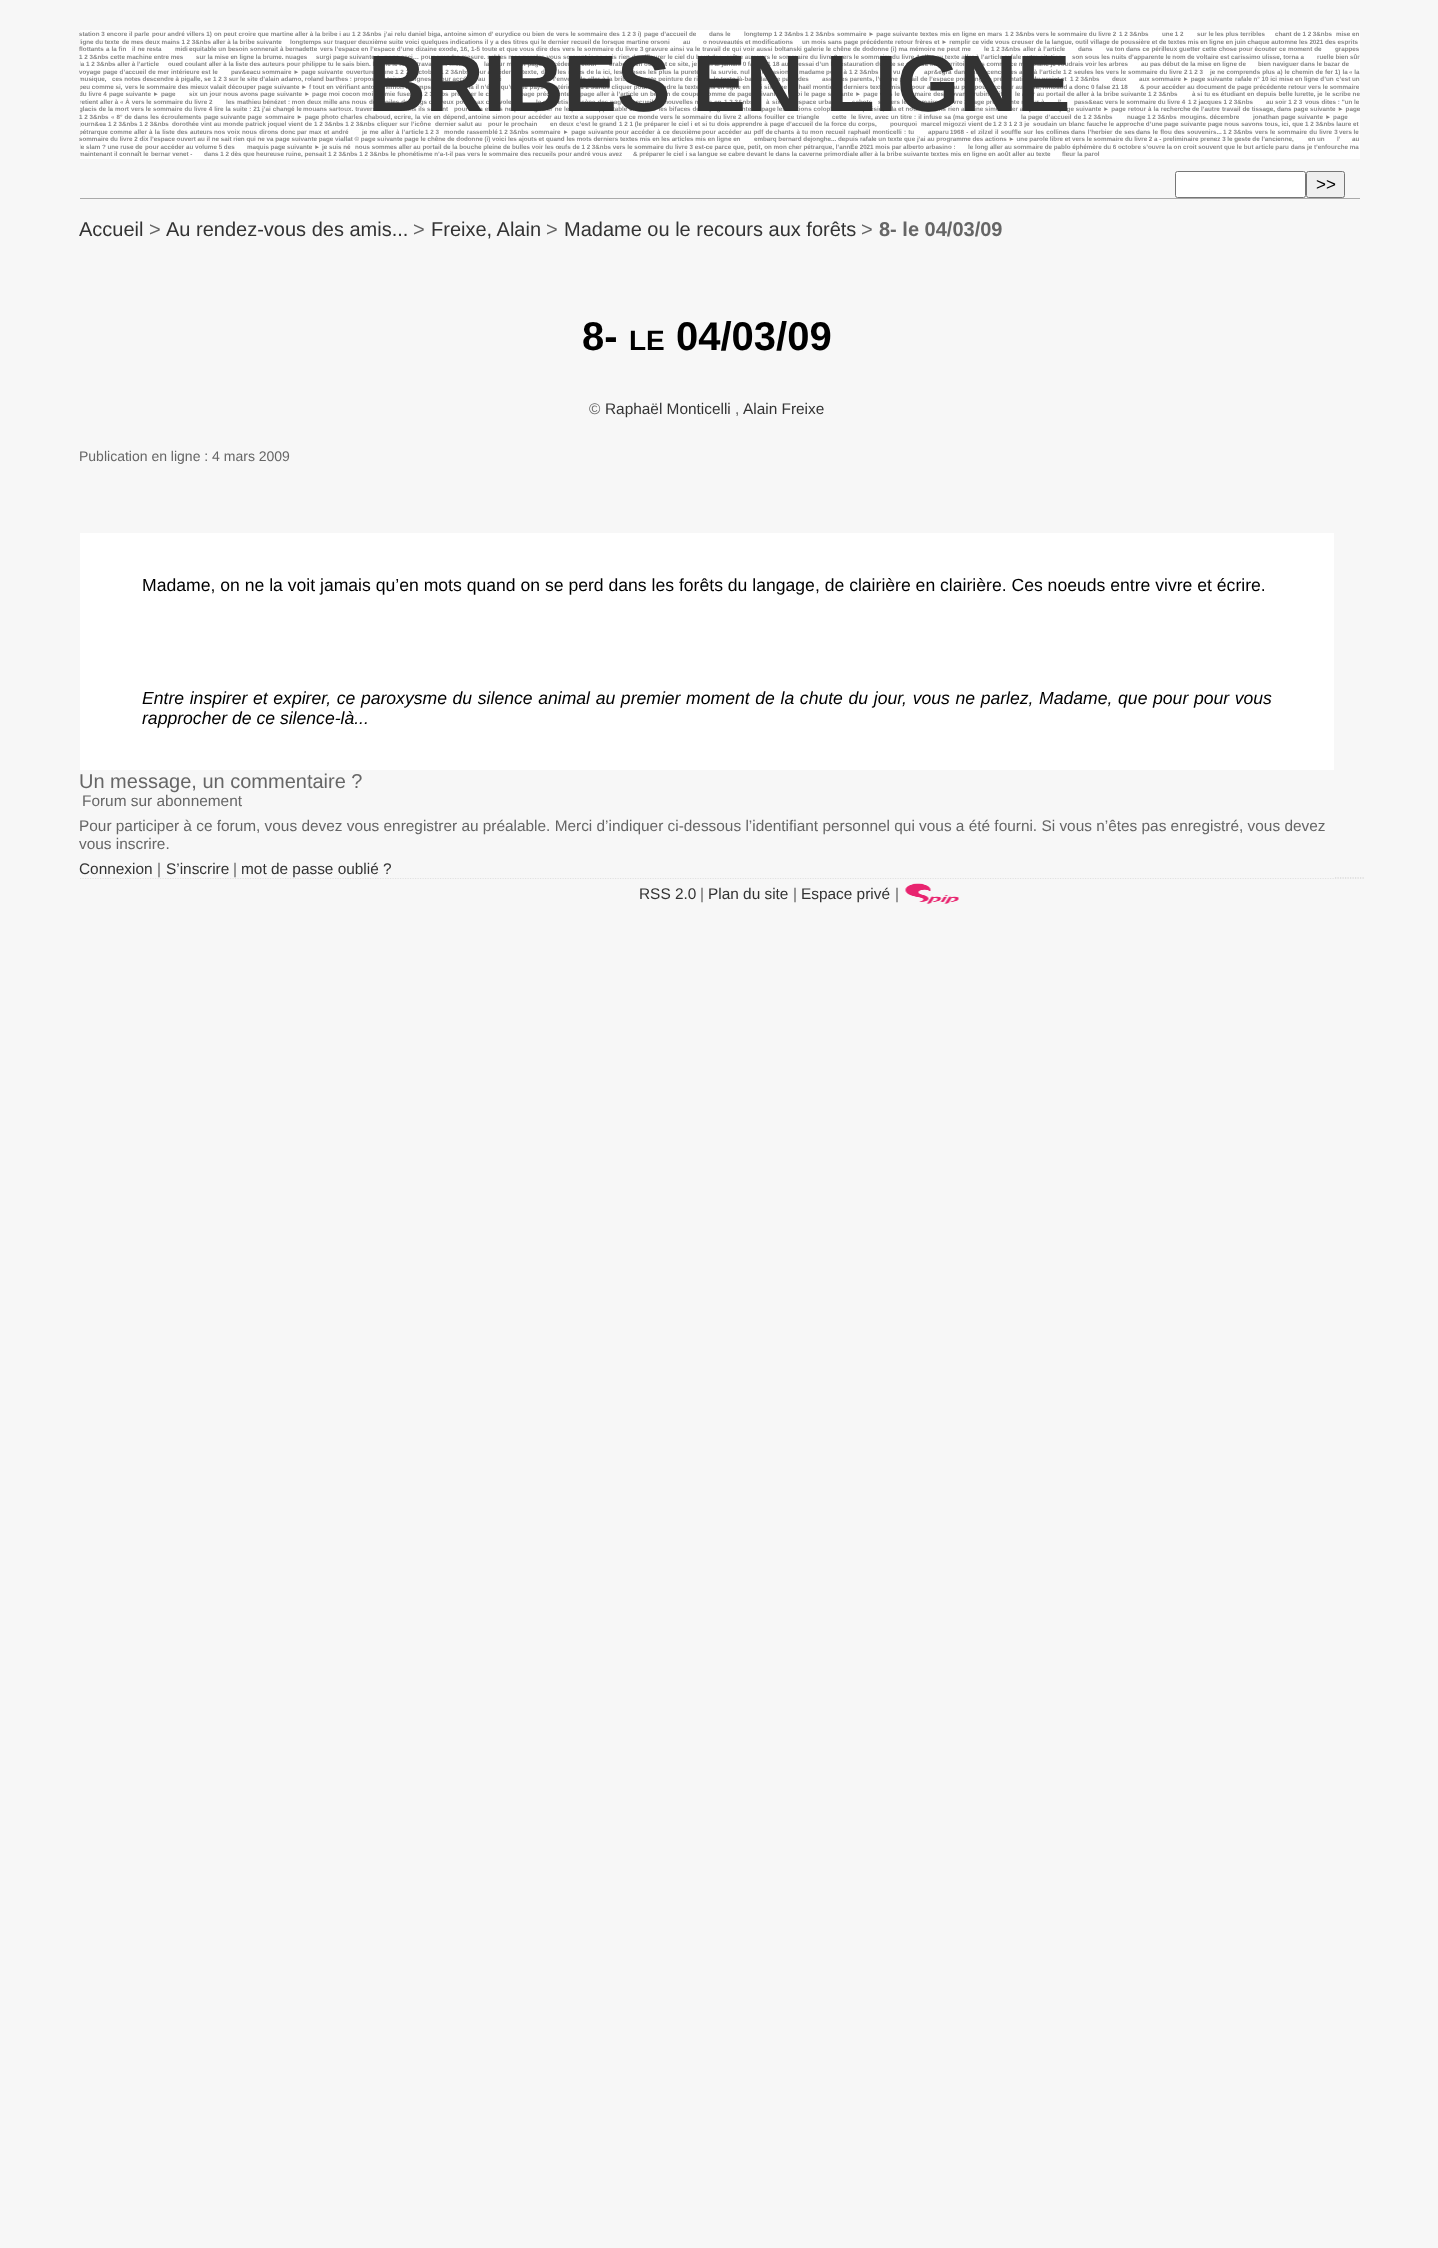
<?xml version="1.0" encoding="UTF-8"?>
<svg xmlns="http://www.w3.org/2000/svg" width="1438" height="2248">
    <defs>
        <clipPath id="clip1"><rect x="80" y="30" width="1280" height="129"/></clipPath>
    </defs>
    <rect width="100%" height="100%" fill="#F7F7F7"/>
    <rect x="80" y="198" width="1280" height="1" fill="#AAAAAA"/>
    <rect x="80" y="30" width="1280" height="129" fill="#FFFFFF"/>
    <text x="79" y="36" word-spacing="0.1" font-family="Liberation Sans" font-size="6.25" font-weight="700" fill="#888888">station 3 encore</text>
    <text x="129" y="36" font-family="Liberation Sans" font-size="6.25" font-weight="700" fill="#888888">il parle</text>
    <text x="152" y="36" font-family="Liberation Sans" font-size="6.25" font-weight="700" fill="#888888">pour andré villers 1)</text>
    <text x="214" y="36" word-spacing="0.1" font-family="Liberation Sans" font-size="6.25" font-weight="700" fill="#888888">on peut croire que martine aller à la bribe i au</text>
    <text x="352" y="36" font-family="Liberation Sans" font-size="6.25" font-weight="700" fill="#888888">1 2 3&amp;nbs</text>
    <text x="384" y="36" word-spacing="0.1" font-family="Liberation Sans" font-size="6.25" font-weight="700" fill="#888888">j’ai relu daniel biga,</text>
    <text x="444" y="36" font-family="Liberation Sans" font-size="6.25" font-weight="700" fill="#888888">antoine simon</text>
    <text x="488" y="36" word-spacing="0.1" font-family="Liberation Sans" font-size="6.25" font-weight="700" fill="#888888">d’ eurydice ou bien de vers le sommaire des</text>
    <text x="622" y="36" font-family="Liberation Sans" font-size="6.25" font-weight="700" fill="#888888">1 2 3 i)</text>
    <text x="644" y="36" word-spacing="0.1" font-family="Liberation Sans" font-size="6.25" font-weight="700" fill="#888888">page d’accueil de</text>
    <text x="709" y="36" font-family="Liberation Sans" font-size="6.25" font-weight="700" fill="#888888">dans le</text>
    <text x="744" y="36" font-family="Liberation Sans" font-size="6.25" font-weight="700" fill="#888888">longtemp 1 2 3&amp;nbs 1 2 3&amp;nbs</text>
    <text x="837" y="36" font-family="Liberation Sans" font-size="6.25" font-weight="700" fill="#888888">sommaire ► page suivante</text>
    <text x="920" y="36" word-spacing="0.1" font-family="Liberation Sans" font-size="6.25" font-weight="700" fill="#888888">textes mis en ligne en mars</text>
    <text x="1005" y="36" font-family="Liberation Sans" font-size="6.25" font-weight="700" fill="#888888">1 2 3&amp;nbs</text>
    <text x="1036" y="36" font-family="Liberation Sans" font-size="6.25" font-weight="700" fill="#888888">vers le sommaire du livre 2</text>
    <text x="1119" y="36" font-family="Liberation Sans" font-size="6.25" font-weight="700" fill="#888888">1 2 3&amp;nbs</text>
    <text x="1162" y="36" font-family="Liberation Sans" font-size="6.25" font-weight="700" fill="#888888">une 1 2</text>
    <text x="1197" y="36" font-family="Liberation Sans" font-size="6.25" font-weight="700" fill="#888888">sur le</text>
    <text x="1215" y="36" word-spacing="0.1" font-family="Liberation Sans" font-size="6.25" font-weight="700" fill="#888888">les plus terribles</text>
    <text x="1275" y="36" font-family="Liberation Sans" font-size="6.25" font-weight="700" fill="#888888">chant de 1 2 3&amp;nbs</text>
    <text x="1336" y="36" font-family="Liberation Sans" font-size="6.25" font-weight="700" fill="#888888">mise en</text>
    <g clip-path="url(#clip1)">
        <text x="79" y="44" font-family="Liberation Sans" font-size="6.25" font-weight="700" fill="#888888">ligne du texte</text>
    </g>
    <text x="122" y="44" font-family="Liberation Sans" font-size="6.25" font-weight="700" fill="#888888">de mes deux mains 1 2 3&amp;nbs aller à la bribe suivante</text>
    <text x="290" y="44" font-family="Liberation Sans" font-size="6.25" font-weight="700" fill="#888888">longtemps sur traquer deuxième suite voici quelques indications il y a des titres qui le dernier recueil de lorsque martine orsoni</text>
    <text x="683" y="44" font-family="Liberation Sans" font-size="6.25" font-weight="700" fill="#888888">au</text>
    <text x="703" y="44" font-family="Liberation Sans" font-size="6.25" font-weight="700" fill="#888888">o nouveautés et modifications</text>
    <text x="802" y="44" font-family="Liberation Sans" font-size="6.25" font-weight="700" fill="#888888">un mois sans page précédente retour frères et ► remplir ce vide vous creuser de la langue, outil village de poussière et de textes mis en ligne en juin chaque automne les 2021 des esprits</text>
    <text x="79" y="51" font-family="Liberation Sans" font-size="6.25" font-weight="700" fill="#888888">flottants</text>
    <text x="106" y="51" word-spacing="0.2" font-family="Liberation Sans" font-size="6.25" font-weight="700" fill="#888888" xml:space="preserve">a la fin   il ne resta</text>
    <text x="175" y="51" font-family="Liberation Sans" font-size="6.25" font-weight="700" fill="#888888">midi</text>
    <text x="189" y="51" word-spacing="0.2" font-family="Liberation Sans" font-size="6.25" font-weight="700" fill="#888888">equitable un besoin sonnerait</text>
    <text x="280" y="51" font-family="Liberation Sans" font-size="6.25" font-weight="700" fill="#888888">à bernadette</text>
    <text x="320" y="51" word-spacing="0.2" font-family="Liberation Sans" font-size="6.25" font-weight="700" fill="#888888">vers l’espace</text>
    <text x="361" y="51" word-spacing="0.2" font-family="Liberation Sans" font-size="6.25" font-weight="700" fill="#888888">en l’espace d’une dizaine exode, 16, 1-5</text>
    <text x="482" y="51" font-family="Liberation Sans" font-size="6.25" font-weight="700" fill="#888888">toute</text>
    <text x="499" y="51" word-spacing="0.2" font-family="Liberation Sans" font-size="6.25" font-weight="700" fill="#888888">et que vous dire des vers le sommaire du livre 3</text>
    <text x="645" y="51" font-family="Liberation Sans" font-size="6.25" font-weight="700" fill="#888888">gravure</text>
    <text x="670" y="51" word-spacing="0.2" font-family="Liberation Sans" font-size="6.25" font-weight="700" fill="#888888">ainsi va le travail de qui voir aussi boltanski galerie le chêne de dodonne (i) ma mémoire ne peut me</text>
    <text x="984" y="51" font-family="Liberation Sans" font-size="6.25" font-weight="700" fill="#888888">le 1 2 3&amp;nbs</text>
    <text x="1023" y="51" word-spacing="0.2" font-family="Liberation Sans" font-size="6.25" font-weight="700" fill="#888888">aller à l’article</text>
    <text x="1078" y="51" font-family="Liberation Sans" font-size="6.25" font-weight="700" fill="#888888">dans</text>
    <text x="1106" y="51" font-family="Liberation Sans" font-size="6.25" font-weight="700" fill="#888888">va ton</text>
    <text x="1126" y="51" word-spacing="0.2" font-family="Liberation Sans" font-size="6.25" font-weight="700" fill="#888888">dans ce périlleux guetter cette chose pour écouter ce moment de</text>
    <text x="1335" y="51" font-family="Liberation Sans" font-size="6.25" font-weight="700" fill="#888888">grappes</text>
    <text x="79" y="59" font-family="Liberation Sans" font-size="6.25" font-weight="700" fill="#888888">1 2 3&amp;nbs cette machine entre mes</text>
    <text x="196" y="59" font-family="Liberation Sans" font-size="6.25" font-weight="700" fill="#888888">sur la mise en ligne la brume. nuages</text>
    <text x="316" y="59" font-family="Liberation Sans" font-size="6.25" font-weight="700" fill="#888888">surgi page suivante ► page ceci… pour prendre mesure. sables mes paroles vous souvent je ne sais rien de effleurer le ciel du bout des</text>
    <text x="726" y="59" font-family="Liberation Sans" font-size="6.25" font-weight="700" fill="#888888">epître aux vers le sommaire du livre 3 vers le sommaire du livre 4 aller au texte aller à l’article rafale autre citation</text>
    <text x="1072" y="59" font-family="Liberation Sans" font-size="6.25" font-weight="700" fill="#888888">son sous les nuits d’apparente le nom de voltaire est carissimo ulisse, torna a</text>
    <text x="1317" y="59" font-family="Liberation Sans" font-size="6.25" font-weight="700" fill="#888888">ruelle bien sûr</text>
    <g clip-path="url(#clip1)">
        <text x="79" y="66" font-family="Liberation Sans" font-size="6.25" font-weight="700" fill="#888888">la</text>
    </g>
    <text x="86" y="66" font-family="Liberation Sans" font-size="6.25" font-weight="700" fill="#888888">1 2 3&amp;nbs aller à l’article</text>
    <text x="168" y="66" font-family="Liberation Sans" font-size="6.25" font-weight="700" fill="#888888">oued coulant aller à la liste des auteurs pour philippe tu le sais bien. luc ne le lourd travail des meules</text>
    <text x="484" y="66" font-family="Liberation Sans" font-size="6.25" font-weight="700" fill="#888888">la pour martin page précédente retour</text>
    <text x="609" y="66" font-family="Liberation Sans" font-size="6.25" font-weight="700" fill="#888888">crabe-ta en ouvrant ce site, je</text>
    <text x="702" y="66" font-family="Liberation Sans" font-size="6.25" font-weight="700" fill="#888888">je n’ai jamais 0 false 21 18 autre essai d’un la restauration du site se sors de mon territoire. fais comme ce mur blanc je voudrais voir les arbres</text>
    <text x="1141" y="66" font-family="Liberation Sans" font-size="6.25" font-weight="700" fill="#888888">au pas début de la mise en ligne de</text>
    <text x="1258" y="66" font-family="Liberation Sans" font-size="6.25" font-weight="700" fill="#888888">bien naviguer dans le bazar de</text>
    <text x="79" y="74" font-family="Liberation Sans" font-size="6.25" font-weight="700" fill="#888888">voyage</text>
    <text x="103" y="74" word-spacing="0.25" font-family="Liberation Sans" font-size="6.25" font-weight="700" fill="#888888">page d’accueil de mer intérieure est le</text>
    <text x="231" y="74" font-family="Liberation Sans" font-size="6.25" font-weight="700" fill="#888888">pav&amp;eacu</text>
    <text x="262" y="74" font-family="Liberation Sans" font-size="6.25" font-weight="700" fill="#888888">sommaire ► page suivante</text>
    <text x="346" y="74" word-spacing="0.25" font-family="Liberation Sans" font-size="6.25" font-weight="700" fill="#888888">ouverture d’une</text>
    <text x="395" y="74" font-family="Liberation Sans" font-size="6.25" font-weight="700" fill="#888888">1 2</text>
    <text x="406" y="74" font-family="Liberation Sans" font-size="6.25" font-weight="700" fill="#888888">25 octobre</text>
    <text x="440" y="74" font-family="Liberation Sans" font-size="6.25" font-weight="700" fill="#888888">1 2 3&amp;nbs</text>
    <text x="472" y="74" font-family="Liberation Sans" font-size="6.25" font-weight="700" fill="#888888">pour accéder au texte,</text>
    <text x="541" y="74" word-spacing="0.25" font-family="Liberation Sans" font-size="6.25" font-weight="700" fill="#888888">dans les rêves de la ici, les choses les plus la pureté de la survie. nul À l’occasion de</text>
    <text x="799" y="74" font-family="Liberation Sans" font-size="6.25" font-weight="700" fill="#888888">madame porte à</text>
    <text x="849" y="74" font-family="Liberation Sans" font-size="6.25" font-weight="700" fill="#888888">1 2 3&amp;nbs</text>
    <text x="893" y="74" word-spacing="0.25" font-family="Liberation Sans" font-size="6.25" font-weight="700" fill="#888888">vu les</text>
    <text x="924" y="74" font-family="Liberation Sans" font-size="6.25" font-weight="700" fill="#888888">apr&amp;egra</text>
    <text x="954" y="74" font-family="Liberation Sans" font-size="6.25" font-weight="700" fill="#888888">dans l’innocence des</text>
    <text x="1019" y="74" word-spacing="0.25" font-family="Liberation Sans" font-size="6.25" font-weight="700" fill="#888888">aller à l’article</text>
    <text x="1063" y="74" font-family="Liberation Sans" font-size="6.25" font-weight="700" fill="#888888">1 2</text>
    <text x="1074" y="74" font-family="Liberation Sans" font-size="6.25" font-weight="700" fill="#888888">seules les</text>
    <text x="1106" y="74" word-spacing="0.25" font-family="Liberation Sans" font-size="6.25" font-weight="700" fill="#888888">vers le sommaire du livre 2</text>
    <text x="1189" y="74" font-family="Liberation Sans" font-size="6.25" font-weight="700" fill="#888888">1 2 3</text>
    <text x="1210" y="74" word-spacing="0.25" font-family="Liberation Sans" font-size="6.25" font-weight="700" fill="#888888">je ne comprends plus a) le chemin de fer 1) la</text>
    <text x="1349" y="74" font-family="Liberation Sans" font-size="6.25" font-weight="700" fill="#888888">« la</text>
    <g clip-path="url(#clip1)">
        <text x="79" y="81" font-family="Liberation Sans" font-size="6.25" font-weight="700" fill="#888888">musique,</text>
    </g>
    <text x="112" y="81" font-family="Liberation Sans" font-size="6.25" font-weight="700" fill="#888888">ces notes descendre à pigalle, se</text>
    <text x="213" y="81" font-family="Liberation Sans" font-size="6.25" font-weight="700" fill="#888888">1 2 3 sur le site d’alain adamo, roland barthes : propos</text>
    <text x="378" y="81" font-family="Liberation Sans" font-size="6.25" font-weight="700" fill="#888888">histoire de signes .</text>
    <text x="437" y="81" font-family="Liberation Sans" font-size="6.25" font-weight="700" fill="#888888">pour accéder au</text>
    <text x="498" y="81" font-family="Liberation Sans" font-size="6.25" font-weight="700" fill="#888888">é</text>
    <text x="514" y="81" font-family="Liberation Sans" font-size="6.25" font-weight="700" fill="#888888">les</text>
    <text x="536" y="81" font-family="Liberation Sans" font-size="6.25" font-weight="700" fill="#888888">entre l’envers de aller à la bribe suivante peinture de rimes. le texte là-bas, dans le pays des</text>
    <text x="822" y="81" font-family="Liberation Sans" font-size="6.25" font-weight="700" fill="#888888">assis les parents, l’ultime portail de l’espace pour angelo présentation du projet et</text>
    <text x="1070" y="81" font-family="Liberation Sans" font-size="6.25" font-weight="700" fill="#888888">1 2 3&amp;nbs</text>
    <text x="1112" y="81" font-family="Liberation Sans" font-size="6.25" font-weight="700" fill="#888888">deux</text>
    <text x="1139" y="81" font-family="Liberation Sans" font-size="6.25" font-weight="700" fill="#888888">aux sommaire ► page suivante</text>
    <text x="1235" y="81" font-family="Liberation Sans" font-size="6.25" font-weight="700" fill="#888888">rafale n° 10 ici</text>
    <text x="1279" y="81" font-family="Liberation Sans" font-size="6.25" font-weight="700" fill="#888888">mise en ligne d’un</text>
    <text x="1336" y="81" font-family="Liberation Sans" font-size="6.25" font-weight="700" fill="#888888">c’est un</text>
    <g clip-path="url(#clip1)">
        <text x="79" y="89" font-family="Liberation Sans" font-size="6.25" font-weight="700" fill="#888888">peu comme si,</text>
    </g>
    <text x="125" y="89" font-family="Liberation Sans" font-size="6.25" font-weight="700" fill="#888888">vers le sommaire des mieux valait découper page suivante ► f tout en vérifiant antoine simon le temps passe dans la il n’était qu’un “le pays mystérieux 1 2 3&amp;nbs cliquer pour rejoindre la textes mis en ligne en mai sixième raphaël monticelli derniers textes mis en pour accéder au pdf, pour accéder au texte, rimbaud a donc 0 false 21 18</text>
    <text x="1140" y="89" font-family="Liberation Sans" font-size="6.25" font-weight="700" fill="#888888">&amp; pour accéder au document de page précédente retour vers le sommaire</text>
    <g clip-path="url(#clip1)">
        <text x="79" y="96" word-spacing="0.2" font-family="Liberation Sans" font-size="6.25" font-weight="700" fill="#888888">du livre 4</text>
    </g>
    <text x="109" y="96" word-spacing="0.2" font-family="Liberation Sans" font-size="6.25" font-weight="700" fill="#888888">page suivante ► page</text>
    <text x="189" y="96" font-family="Liberation Sans" font-size="6.25" font-weight="700" fill="#888888">six</text>
    <text x="200" y="96" word-spacing="0.2" font-family="Liberation Sans" font-size="6.25" font-weight="700" fill="#888888">un jour nous avons page suivante ► page moi cocon moi momie fuseau</text>
    <text x="419" y="96" font-family="Liberation Sans" font-size="6.25" font-weight="700" fill="#888888">1 2 3&amp;nbs</text>
    <text x="451" y="96" word-spacing="0.2" font-family="Liberation Sans" font-size="6.25" font-weight="700" fill="#888888">préparer le ciel i</text>
    <text x="513" y="96" font-family="Liberation Sans" font-size="6.25" font-weight="700" fill="#888888">la</text>
    <text x="520" y="96" word-spacing="0.2" font-family="Liberation Sans" font-size="6.25" font-weight="700" fill="#888888">page précédente ► page aller à l’article un besoin de couper comme de page suivante ► a toi le page suivante ► page vers le sommaire des giovanni rubino dit</text>
    <text x="1015" y="96" font-family="Liberation Sans" font-size="6.25" font-weight="700" fill="#888888">le</text>
    <text x="1022" y="96" word-spacing="0.2" font-family="Liberation Sans" font-size="6.25" font-weight="700" fill="#888888">aller au portail de aller à la bribe suivante</text>
    <text x="1148" y="96" font-family="Liberation Sans" font-size="6.25" font-weight="700" fill="#888888">1 2 3&amp;nbs</text>
    <text x="1192" y="96" font-family="Liberation Sans" font-size="6.25" font-weight="700" fill="#888888">à</text>
    <text x="1197" y="96" word-spacing="0.2" font-family="Liberation Sans" font-size="6.25" font-weight="700" fill="#888888">si tu es étudiant en depuis belle lurette, je</text>
    <text x="1325" y="96" word-spacing="0.25" font-family="Liberation Sans" font-size="6.25" font-weight="700" fill="#888888">le scribe ne</text>
    <g clip-path="url(#clip1)">
        <text x="79" y="104" font-family="Liberation Sans" font-size="6.25" font-weight="700" fill="#888888">retient</text>
    </g>
    <text x="100" y="104" word-spacing="0.1" font-family="Liberation Sans" font-size="6.25" font-weight="700" fill="#888888">aller à « À vers le sommaire du livre 2</text>
    <text x="226" y="104" font-family="Liberation Sans" font-size="6.25" font-weight="700" fill="#888888">les</text>
    <text x="237" y="104" word-spacing="0.1" font-family="Liberation Sans" font-size="6.25" font-weight="700" fill="#888888">mathieu bénézet : mon</text>
    <text x="307" y="104" font-family="Liberation Sans" font-size="6.25" font-weight="700" fill="#888888">deux mille ans nous</text>
    <text x="369" y="104" word-spacing="0.1" font-family="Liberation Sans" font-size="6.25" font-weight="700" fill="#888888">des voiles de longs cheveux pour max charvolen 1)</text>
    <text x="536" y="104" font-family="Liberation Sans" font-size="6.25" font-weight="700" fill="#888888">la</text>
    <text x="543" y="104" word-spacing="0.1" font-family="Liberation Sans" font-size="6.25" font-weight="700" fill="#888888">cliquetis obscène des page d’accueil de nouvelles mises en</text>
    <text x="724" y="104" font-family="Liberation Sans" font-size="6.25" font-weight="700" fill="#888888">1 2 3&amp;nbs</text>
    <text x="766" y="104" font-family="Liberation Sans" font-size="6.25" font-weight="700" fill="#888888">à</text>
    <text x="772" y="104" word-spacing="0.1" font-family="Liberation Sans" font-size="6.25" font-weight="700" fill="#888888">six de l’espace urbain,</text>
    <text x="852" y="104" font-family="Liberation Sans" font-size="6.25" font-weight="700" fill="#888888">sabots</text>
    <text x="878" y="104" font-family="Liberation Sans" font-size="6.25" font-weight="700" fill="#888888">se</text>
    <text x="887" y="104" word-spacing="0.1" font-family="Liberation Sans" font-size="6.25" font-weight="700" fill="#888888">vers le sommaire du livre 3 page précédente retour à</text>
    <text x="1058" y="104" font-family="Liberation Sans" font-size="6.25" font-weight="700" fill="#888888">l’</text>
    <text x="1074" y="104" font-family="Liberation Sans" font-size="6.25" font-weight="700" fill="#888888">pass&amp;eac</text>
    <text x="1105" y="104" font-family="Liberation Sans" font-size="6.25" font-weight="700" fill="#888888">vers le sommaire du livre 4</text>
    <text x="1188" y="104" font-family="Liberation Sans" font-size="6.25" font-weight="700" fill="#888888">1 2 jacques 1 2 3&amp;nbs</text>
    <text x="1266" y="104" font-family="Liberation Sans" font-size="6.25" font-weight="700" fill="#888888">au soir 1 2 3</text>
    <text x="1305" y="104" word-spacing="0.1" font-family="Liberation Sans" font-size="6.25" font-weight="700" fill="#888888">vous dites : "un</text>
    <text x="1354" y="104" font-family="Liberation Sans" font-size="6.25" font-weight="700" fill="#888888">le</text>
    <g clip-path="url(#clip1)">
        <text x="79" y="111" word-spacing="0.2" font-family="Liberation Sans" font-size="6.25" font-weight="700" fill="#888888">glacis de la mort</text>
    </g>
    <text x="131" y="111" word-spacing="0.2" font-family="Liberation Sans" font-size="6.25" font-weight="700" fill="#888888">vers le sommaire du livre 4 lire la suite : 21</text>
    <text x="262" y="111" word-spacing="0.25" font-family="Liberation Sans" font-size="6.25" font-weight="700" fill="#888888">j’ai changé le</text>
    <text x="303" y="111" word-spacing="0.2" font-family="Liberation Sans" font-size="6.25" font-weight="700" fill="#888888">mouans sartoux. traverse de</text>
    <text x="402" y="111" font-family="Liberation Sans" font-size="6.25" font-weight="700" fill="#888888">dans ils sortent</text>
    <text x="454" y="111" word-spacing="0.25" font-family="Liberation Sans" font-size="6.25" font-weight="700" fill="#888888">pour théa et ses ne pas négocier ne</text>
    <text x="564" y="111" word-spacing="0.2" font-family="Liberation Sans" font-size="6.25" font-weight="700" fill="#888888">le plus insupportable chez voir les bifaces de b. page suivante ► page</text>
    <text x="777" y="111" word-spacing="0.25" font-family="Liberation Sans" font-size="6.25" font-weight="700" fill="#888888">les éditions colophonarte la poésie, à la</text>
    <text x="898" y="111" word-spacing="0.2" font-family="Liberation Sans" font-size="6.25" font-weight="700" fill="#888888">et nous n’avons rien</text>
    <text x="961" y="111" font-family="Liberation Sans" font-size="6.25" font-weight="700" fill="#888888">antoine simon</text>
    <text x="1005" y="111" word-spacing="0.2" font-family="Liberation Sans" font-size="6.25" font-weight="700" fill="#888888">aller au portail de page suivante ► page</text>
    <text x="1128" y="111" word-spacing="0.25" font-family="Liberation Sans" font-size="6.25" font-weight="700" fill="#888888">retour à la recherche</text>
    <text x="1192" y="111" font-family="Liberation Sans" font-size="6.25" font-weight="700" fill="#888888">de l’autre</text>
    <text x="1222" y="111" word-spacing="0.25" font-family="Liberation Sans" font-size="6.25" font-weight="700" fill="#888888">travail de tissage, dans page suivante ► page</text>
    <text x="79" y="119" font-family="Liberation Sans" font-size="6.25" font-weight="700" fill="#888888">1 2 3&amp;nbs</text>
    <text x="111" y="119" word-spacing="0.25" font-family="Liberation Sans" font-size="6.25" font-weight="700" fill="#888888">« 8° de dans les écroulements</text>
    <text x="204" y="119" font-family="Liberation Sans" font-size="6.25" font-weight="700" fill="#888888">page suivante page</text>
    <text x="265" y="119" word-spacing="0.25" font-family="Liberation Sans" font-size="6.25" font-weight="700" fill="#888888">sommaire ► page photo charles chaboud,</text>
    <text x="394" y="119" word-spacing="0.5" font-family="Liberation Sans" font-size="6.25" font-weight="700" fill="#888888">ecrire, la vie en dépend,</text>
    <text x="468" y="119" word-spacing="0.25" font-family="Liberation Sans" font-size="6.25" font-weight="700" fill="#888888">antoine simon</text>
    <text x="512" y="119" word-spacing="0.5" font-family="Liberation Sans" font-size="6.25" font-weight="700" fill="#888888">pour accéder au texte</text>
    <text x="580" y="119" word-spacing="0.25" font-family="Liberation Sans" font-size="6.25" font-weight="700" fill="#888888">a supposer que ce monde vers le sommaire du livre 2</text>
    <text x="744" y="119" word-spacing="0.5" font-family="Liberation Sans" font-size="6.25" font-weight="700" fill="#888888">allons fouiller ce triangle</text>
    <text x="832" y="119" font-family="Liberation Sans" font-size="6.25" font-weight="700" fill="#888888">cette</text>
    <text x="851" y="119" word-spacing="0.25" font-family="Liberation Sans" font-size="6.25" font-weight="700" fill="#888888">le livre, avec un titre : il infuse sa (ma gorge est une</text>
    <text x="1021" y="119" font-family="Liberation Sans" font-size="6.25" font-weight="700" fill="#888888">la</text>
    <text x="1028" y="119" word-spacing="0.5" font-family="Liberation Sans" font-size="6.25" font-weight="700" fill="#888888">page d’accueil de</text>
    <text x="1083" y="119" font-family="Liberation Sans" font-size="6.25" font-weight="700" fill="#888888">1 2 3&amp;nbs</text>
    <text x="1127" y="119" font-family="Liberation Sans" font-size="6.25" font-weight="700" fill="#888888">nuage 1 2 3&amp;nbs</text>
    <text x="1180" y="119" word-spacing="0.25" font-family="Liberation Sans" font-size="6.25" font-weight="700" fill="#888888">mougins. décembre</text>
    <text x="1253" y="119" font-family="Liberation Sans" font-size="6.25" font-weight="700" fill="#888888">jonathan</text>
    <text x="1281" y="119" word-spacing="0.25" font-family="Liberation Sans" font-size="6.25" font-weight="700" fill="#888888">page suivante ► page</text>
    <g clip-path="url(#clip1)">
        <text x="79" y="126" font-family="Liberation Sans" font-size="6.25" font-weight="700" fill="#888888">journ&amp;ea</text>
    </g>
    <text x="108" y="126" font-family="Liberation Sans" font-size="6.25" font-weight="700" fill="#888888">1 2 3&amp;nbs 1 2 3&amp;nbs</text>
    <text x="172" y="126" word-spacing="0.2" font-family="Liberation Sans" font-size="6.25" font-weight="700" fill="#888888">dorothée vint au monde patrick joquel vient de</text>
    <text x="314" y="126" font-family="Liberation Sans" font-size="6.25" font-weight="700" fill="#888888">1 2 3&amp;nbs 1 2 3&amp;nbs</text>
    <text x="377" y="126" word-spacing="0.2" font-family="Liberation Sans" font-size="6.25" font-weight="700" fill="#888888">cliquer sur l’icône</text>
    <text x="435" y="126" word-spacing="0.2" font-family="Liberation Sans" font-size="6.25" font-weight="700" fill="#888888">dernier salut au</text>
    <text x="488" y="126" word-spacing="0.2" font-family="Liberation Sans" font-size="6.25" font-weight="700" fill="#888888">pour le prochain</text>
    <text x="550" y="126" font-family="Liberation Sans" font-size="6.25" font-weight="700" fill="#888888">en deux</text>
    <text x="576" y="126" word-spacing="0.2" font-family="Liberation Sans" font-size="6.25" font-weight="700" fill="#888888">c’est le grand</text>
    <text x="619" y="126" font-family="Liberation Sans" font-size="6.25" font-weight="700" fill="#888888">1 2 1 (le</text>
    <text x="644" y="126" word-spacing="0.2" font-family="Liberation Sans" font-size="6.25" font-weight="700" fill="#888888">préparer le ciel i et si tu dois apprendre à page d’accueil de la force du corps,</text>
    <text x="890" y="126" font-family="Liberation Sans" font-size="6.25" font-weight="700" fill="#888888">pourquoi</text>
    <text x="921" y="126" word-spacing="0.2" font-family="Liberation Sans" font-size="6.25" font-weight="700" fill="#888888">marcel migozzi vient de</text>
    <text x="993" y="126" font-family="Liberation Sans" font-size="6.25" font-weight="700" fill="#888888">1 2 3 1 2 3 je</text>
    <text x="1033" y="126" word-spacing="0.2" font-family="Liberation Sans" font-size="6.25" font-weight="700" fill="#888888">soudain un blanc fauche le</text>
    <text x="1116" y="126" font-family="Liberation Sans" font-size="6.25" font-weight="700" fill="#888888">approche d’une</text>
    <text x="1164" y="126" word-spacing="0.2" font-family="Liberation Sans" font-size="6.25" font-weight="700" fill="#888888">page suivante page nous savons tous, ici, que</text>
    <text x="1305" y="126" font-family="Liberation Sans" font-size="6.25" font-weight="700" fill="#888888">1 2 3&amp;nbs laure et</text>
    <g clip-path="url(#clip1)">
        <text x="79" y="134" word-spacing="0.5" font-family="Liberation Sans" font-size="6.25" font-weight="700" fill="#888888">pétrarque comme</text>
    </g>
    <text x="134" y="134" word-spacing="0.5" font-family="Liberation Sans" font-size="6.25" font-weight="700" fill="#888888">aller à la liste des auteurs</text>
    <text x="214" y="134" word-spacing="0.5" font-family="Liberation Sans" font-size="6.25" font-weight="700" fill="#888888">nos voix</text>
    <text x="242" y="134" word-spacing="0.5" font-family="Liberation Sans" font-size="6.25" font-weight="700" fill="#888888">nous dirons donc</text>
    <text x="297" y="134" word-spacing="0.5" font-family="Liberation Sans" font-size="6.25" font-weight="700" fill="#888888">par max et andré</text>
    <text x="362" y="134" word-spacing="0.5" font-family="Liberation Sans" font-size="6.25" font-weight="700" fill="#888888">je me</text>
    <text x="381" y="134" word-spacing="0.5" font-family="Liberation Sans" font-size="6.25" font-weight="700" fill="#888888">aller à l’article</text>
    <text x="425" y="134" font-family="Liberation Sans" font-size="6.25" font-weight="700" fill="#888888">1 2 3</text>
    <text x="444" y="134" word-spacing="0.5" font-family="Liberation Sans" font-size="6.25" font-weight="700" fill="#888888">monde rassemblé</text>
    <text x="499" y="134" font-family="Liberation Sans" font-size="6.25" font-weight="700" fill="#888888">1 2 3&amp;nbs</text>
    <text x="531" y="134" word-spacing="0.5" font-family="Liberation Sans" font-size="6.25" font-weight="700" fill="#888888">sommaire ► page suivante</text>
    <text x="615" y="134" word-spacing="0.5" font-family="Liberation Sans" font-size="6.25" font-weight="700" fill="#888888">pour accéder à ce deuxième</text>
    <text x="702" y="134" word-spacing="0.5" font-family="Liberation Sans" font-size="6.25" font-weight="700" fill="#888888">pour accéder au pdf de</text>
    <text x="774" y="134" word-spacing="0.5" font-family="Liberation Sans" font-size="6.25" font-weight="700" fill="#888888">chants à tu</text>
    <text x="810" y="134" word-spacing="0.5" font-family="Liberation Sans" font-size="6.25" font-weight="700" fill="#888888">mon recueil</text>
    <text x="848" y="134" word-spacing="0.5" font-family="Liberation Sans" font-size="6.25" font-weight="700" fill="#888888">raphaël monticelli : tu</text>
    <text x="928" y="134" font-family="Liberation Sans" font-size="6.25" font-weight="700" fill="#888888">apparu</text>
    <text x="950" y="134" word-spacing="0.5" font-family="Liberation Sans" font-size="6.25" font-weight="700" fill="#888888">1968 - el zilzel</text>
    <text x="995" y="134" word-spacing="0.5" font-family="Liberation Sans" font-size="6.25" font-weight="700" fill="#888888">il souffle sur les collines</text>
    <text x="1071" y="134" word-spacing="0.5" font-family="Liberation Sans" font-size="6.25" font-weight="700" fill="#888888">dans l’herbier de ses</text>
    <text x="1136" y="134" word-spacing="0.5" font-family="Liberation Sans" font-size="6.25" font-weight="700" fill="#888888">dans le flou des souvenirs...</text>
    <text x="1223" y="134" font-family="Liberation Sans" font-size="6.25" font-weight="700" fill="#888888">1 2 3&amp;nbs</text>
    <text x="1255" y="134" word-spacing="0.5" font-family="Liberation Sans" font-size="6.25" font-weight="700" fill="#888888">vers le sommaire du livre 3</text>
    <text x="1339" y="134" font-family="Liberation Sans" font-size="6.25" font-weight="700" fill="#888888">vers le</text>
    <text x="79" y="141" font-family="Liberation Sans" font-size="6.25" font-weight="700" fill="#888888">sommaire du livre 2 dix l’espace ouvert au il ne sait rien qui ne va page suivante page viallat © page suivante page le chêne de dodonne (i) voici les ajouts et quand les mots derniers textes mis en les articles mis en ligne en</text>
    <text x="754" y="141" font-family="Liberation Sans" font-size="6.25" font-weight="700" fill="#888888">embarq bernard dejonghe... depuis rafale un texte que j’ai au programme des actions ► une parole libre et vers le sommaire du livre 2 a - preliminaire prenez 3 le geste de l’ancienne,</text>
    <text x="1308" y="141" font-family="Liberation Sans" font-size="6.25" font-weight="700" fill="#888888">en un</text>
    <text x="1337" y="141" font-family="Liberation Sans" font-size="6.25" font-weight="700" fill="#888888">l’</text>
    <text x="1352" y="141" font-family="Liberation Sans" font-size="6.25" font-weight="700" fill="#888888">au</text>
    <g clip-path="url(#clip1)">
        <text x="79" y="149" font-family="Liberation Sans" font-size="6.25" font-weight="700" fill="#888888">le slam ? une ruse de</text>
    </g>
    <text x="145" y="149" font-family="Liberation Sans" font-size="6.25" font-weight="700" fill="#888888">pour accéder au volume 5 des</text>
    <text x="247" y="149" font-family="Liberation Sans" font-size="6.25" font-weight="700" fill="#888888">maquis page suivante ► je suis né</text>
    <text x="355" y="149" font-family="Liberation Sans" font-size="6.25" font-weight="700" fill="#888888">nous sommes aller au portail de la bouche pleine de bulles voir les œufs de 1 2 3&amp;nbs vers le sommaire du livre 3 est-ce parce que, petit, on mon cher pétrarque, l’annÉe 2021 mois par alberto arbasino :</text>
    <text x="968" y="149" font-family="Liberation Sans" font-size="6.25" font-weight="700" fill="#888888">le long aller au sommaire de pablo éphémère du 6 octobre s’ouvre la on croit souvent que le but article paru dans je t’enfourche ma</text>
    <g clip-path="url(#clip1)">
        <text x="79" y="156" font-family="Liberation Sans" font-size="6.25" font-weight="700" fill="#888888">maintenant il connaît le</text>
    </g>
    <text x="151" y="156" font-family="Liberation Sans" font-size="6.25" font-weight="700" fill="#888888">bernar venet -</text>
    <text x="204" y="156" font-family="Liberation Sans" font-size="6.25" font-weight="700" fill="#888888">dans 1 2 dès que heureuse ruine, pensait 1 2 3&amp;nbs 1 2 3&amp;nbs le phonétisme n’a-t-il pas vers le sommaire des recueils pour andré vous avez</text>
    <text x="633" y="156" font-family="Liberation Sans" font-size="6.25" font-weight="700" fill="#888888">&amp; préparer le ciel i sa langue se cabre devant le dans la caverne primordiale aller à la bribe suivante textes mis en ligne en août aller au texte</text>
    <text x="1062" y="156" font-family="Liberation Sans" font-size="6.25" font-weight="700" fill="#888888">fleur la parol</text>
    <text x="368" y="111" font-family="Liberation Sans" font-size="80" font-weight="700" fill="#333333">BRIBES EN LIGNE</text>
    <rect x="1175.5" y="171.5" width="130" height="26" rx="2" fill="#FFFFFF" stroke="#767676"/>
    <rect x="1306.5" y="171.5" width="38" height="26" rx="2" fill="#EFEFEF" stroke="#767676"/>
    <text x="1316" y="190" font-family="Liberation Sans" font-size="17" fill="#000000">&gt;&gt;</text>
    <text x="79" y="236" font-family="Liberation Sans" font-size="20" fill="#333333">Accueil</text>
    <text x="149" y="236" font-family="Liberation Sans" font-size="20" fill="#666666">&gt;</text>
    <text x="166" y="236" font-family="Liberation Sans" font-size="20" fill="#333333">Au rendez-vous des amis...</text>
    <text x="413" y="236" font-family="Liberation Sans" font-size="20" fill="#666666">&gt;</text>
    <text x="431" y="236" font-family="Liberation Sans" font-size="20" fill="#333333">Freixe, Alain</text>
    <text x="546" y="236" font-family="Liberation Sans" font-size="20" fill="#666666">&gt;</text>
    <text x="564" y="236" font-family="Liberation Sans" font-size="20" fill="#333333">Madame ou le recours aux forêts</text>
    <text x="861" y="236" font-family="Liberation Sans" font-size="20" fill="#666666">&gt;</text>
    <text x="879" y="236" font-family="Liberation Sans" font-size="20" font-weight="700" fill="#666666">8- le 04/03/09</text>
    <path d="M 80 878 H 1365" fill="none" stroke="#CCCCCC" stroke-width="1.2" stroke-dasharray="1.25 1.25"/>
    <rect x="80" y="877" width="1254" height="1" fill="#F7F7F7"/>
    <text x="582" y="350" font-family="Liberation Sans" font-size="40" font-weight="700" fill="#000000">8-</text>
    <text x="629" y="350" font-family="Liberation Sans" font-size="28" font-weight="700" fill="#000000">LE</text>
    <text x="676" y="350" font-family="Liberation Sans" font-size="40" font-weight="700" fill="#000000">04/03/09</text>
    <text x="589" y="414" font-family="Liberation Sans" font-size="15.4" fill="#666666">©</text>
    <text x="605" y="414" font-family="Liberation Sans" font-size="15.4" fill="#333333">Raphaël Monticelli</text>
    <text x="735" y="414" font-family="Liberation Sans" font-size="15.4" fill="#666666">,</text>
    <text x="743" y="414" font-family="Liberation Sans" font-size="15.4" fill="#333333">Alain Freixe</text>
    <text x="79" y="461" font-family="Liberation Sans" font-size="14" fill="#666666">Publication en ligne : 4 mars 2009</text>
    <rect x="80" y="533" width="1254" height="237" fill="#FFFFFF"/>
    <text x="142" y="591" font-family="Liberation Sans" font-size="17.6" fill="#000000">Madame, on ne la voit jamais qu’en mots quand on se perd dans les forêts du langage, de clairière en clairière. Ces noeuds entre vivre et écrire.</text>
    <text font-family="Liberation Sans" font-size="17.6" font-style="italic" fill="#000000">
        <tspan x="142" y="704" word-spacing="0.75">Entre inspirer et expirer, ce paroxysme du silence animal au premier moment de la chute du jour, vous ne parlez, Madame, que pour pour vous</tspan>
        <tspan x="142" y="724">rapprocher de ce silence-là...</tspan>
    </text>
    <text x="79" y="788" font-family="Liberation Sans" font-size="20" fill="#666666">Un message, un commentaire ?</text>
    <text x="82" y="806" font-family="Liberation Sans" font-size="15.4" fill="#666666">Forum sur abonnement</text>
    <text font-family="Liberation Sans" font-size="15.4" fill="#666666">
        <tspan x="79" y="831">Pour participer à ce forum, vous devez vous enregistrer au préalable. Merci d’indiquer ci-dessous l’identifiant personnel qui vous a été fourni. Si vous n’êtes pas enregistré, vous devez</tspan>
        <tspan x="79" y="849">vous inscrire.</tspan>
    </text>
    <text x="79" y="874" font-family="Liberation Sans" font-size="15.4" fill="#333333">Connexion</text>
    <text x="157" y="874" font-family="Liberation Sans" font-size="15.4" fill="#666666">|</text>
    <text x="166" y="874" font-family="Liberation Sans" font-size="15.4" fill="#333333">S’inscrire</text>
    <text x="233" y="874" font-family="Liberation Sans" font-size="15.4" fill="#666666">|</text>
    <text x="241" y="874" font-family="Liberation Sans" font-size="15.4" fill="#333333">mot de passe oublié ?</text>
    <text x="639" y="899" font-family="Liberation Sans" font-size="15.4" fill="#333333">RSS 2.0</text>
    <text x="700" y="899" font-family="Liberation Sans" font-size="15.4" fill="#666666">|</text>
    <text x="708" y="899" font-family="Liberation Sans" font-size="15.4" fill="#333333">Plan du site</text>
    <text x="793" y="899" font-family="Liberation Sans" font-size="15.4" fill="#666666">|</text>
    <text x="801" y="899" font-family="Liberation Sans" font-size="15.4" fill="#333333">Espace privé</text>
    <text x="895" y="899" font-family="Liberation Sans" font-size="15.4" fill="#666666">|</text>
    <image x="905" y="883" width="54" height="21" href="img_01.png"/>
</svg>
